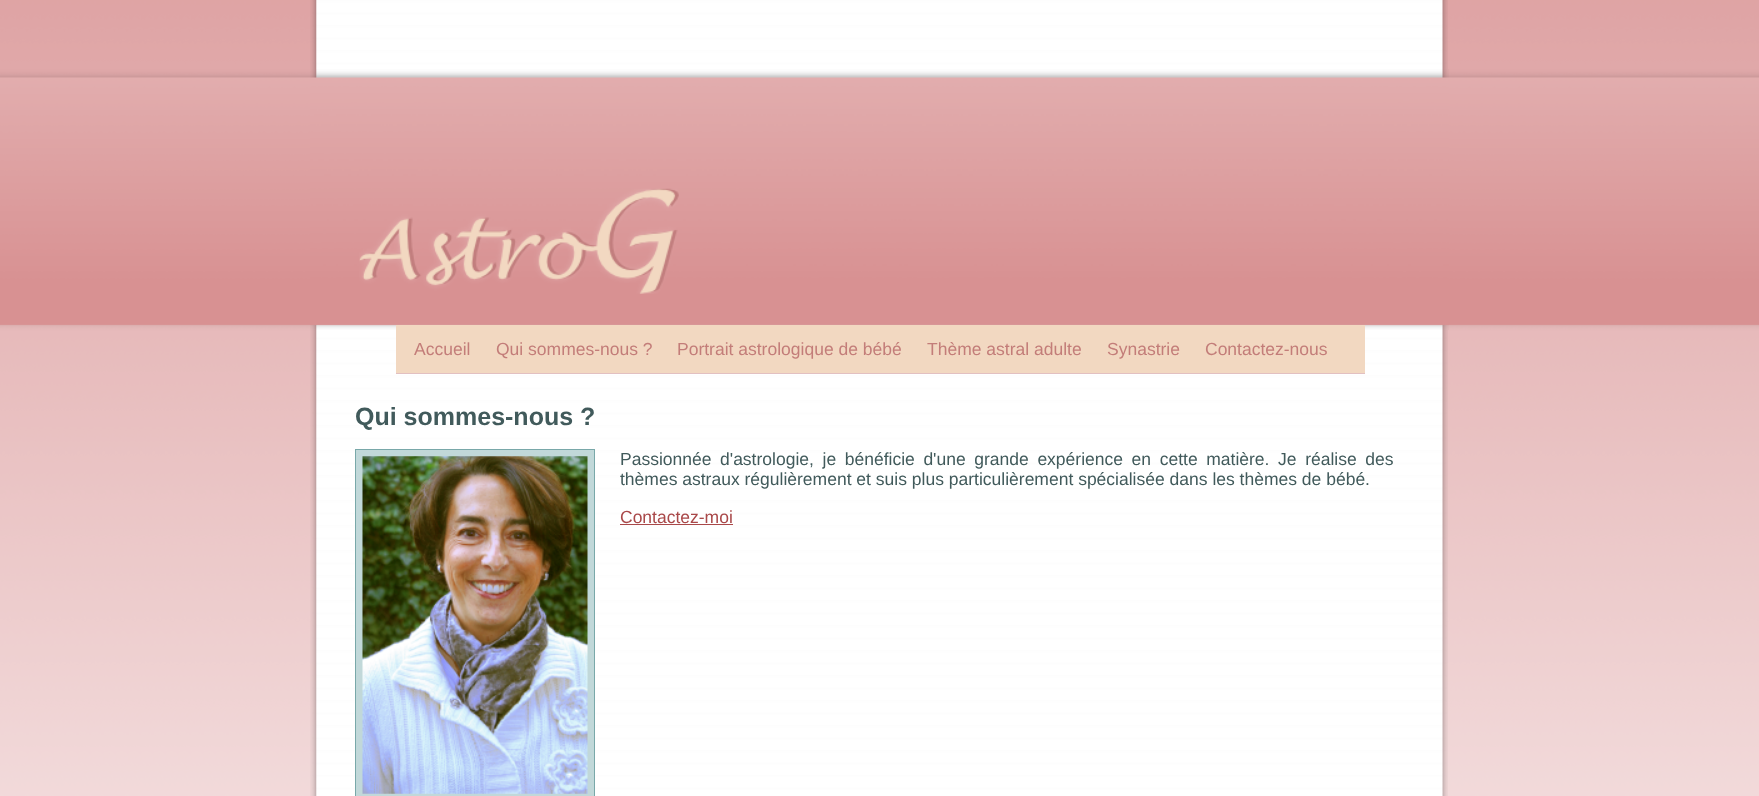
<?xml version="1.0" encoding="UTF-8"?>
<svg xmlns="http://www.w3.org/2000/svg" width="1759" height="796">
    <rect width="100%" height="100%" fill="#FFFFFF"/>
    <image x="0" y="0" width="1759" height="796" href="img_01.png"/>
    <image x="310" y="0" width="1138" height="796" href="img_02.png"/>
    <image x="310" y="69" width="1139" height="261" href="img_03.png"/>
    <image x="359" y="188" width="320" height="106" href="img_04.png"/>
    <rect x="396" y="325" width="969" height="48" fill="#F2D8C1"/>
    <rect x="396" y="373" width="969" height="1" fill="#E2C0C1"/>
    <text x="414" y="355" font-family="Liberation Sans" font-size="17.5" fill="#C37D79">Accueil</text>
    <text x="496" y="355" font-family="Liberation Sans" font-size="17.5" fill="#C37D79">Qui sommes-nous ?</text>
    <text x="677" y="355" font-family="Liberation Sans" font-size="17.5" fill="#C37D79">Portrait astrologique de bébé</text>
    <text x="927" y="355" font-family="Liberation Sans" font-size="17.5" fill="#C37D79">Thème astral adulte</text>
    <text x="1107" y="355" font-family="Liberation Sans" font-size="17.5" fill="#C37D79">Synastrie</text>
    <text x="1205" y="355" font-family="Liberation Sans" font-size="17.5" fill="#C37D79">Contactez-nous</text>
    <text x="355" y="425" font-family="Liberation Sans" font-size="25" font-weight="700" fill="#415A5B">Qui sommes-nous ?</text>
    <rect x="355.5" y="449.5" width="239" height="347" fill="#C1D8D9" stroke="#79A8A9"/>
    <image x="362" y="456" width="226" height="338" href="img_05.png"/>
    <text font-family="Liberation Sans" font-size="17.5" fill="#415A5B">
        <tspan x="620" y="465" word-spacing="3.75">Passionnée d'astrologie, je bénéficie d'une grande expérience en cette matière. Je réalise des</tspan>
        <tspan x="620" y="485">thèmes astraux régulièrement et suis plus particulièrement spécialisée dans les thèmes de bébé.</tspan>
    </text>
    <text x="620" y="523" font-family="Liberation Sans" font-size="17.5" fill="#A94849">Contactez-moi</text>
    <rect x="620" y="524" width="113" height="1" fill="#A94849"/>
</svg>
